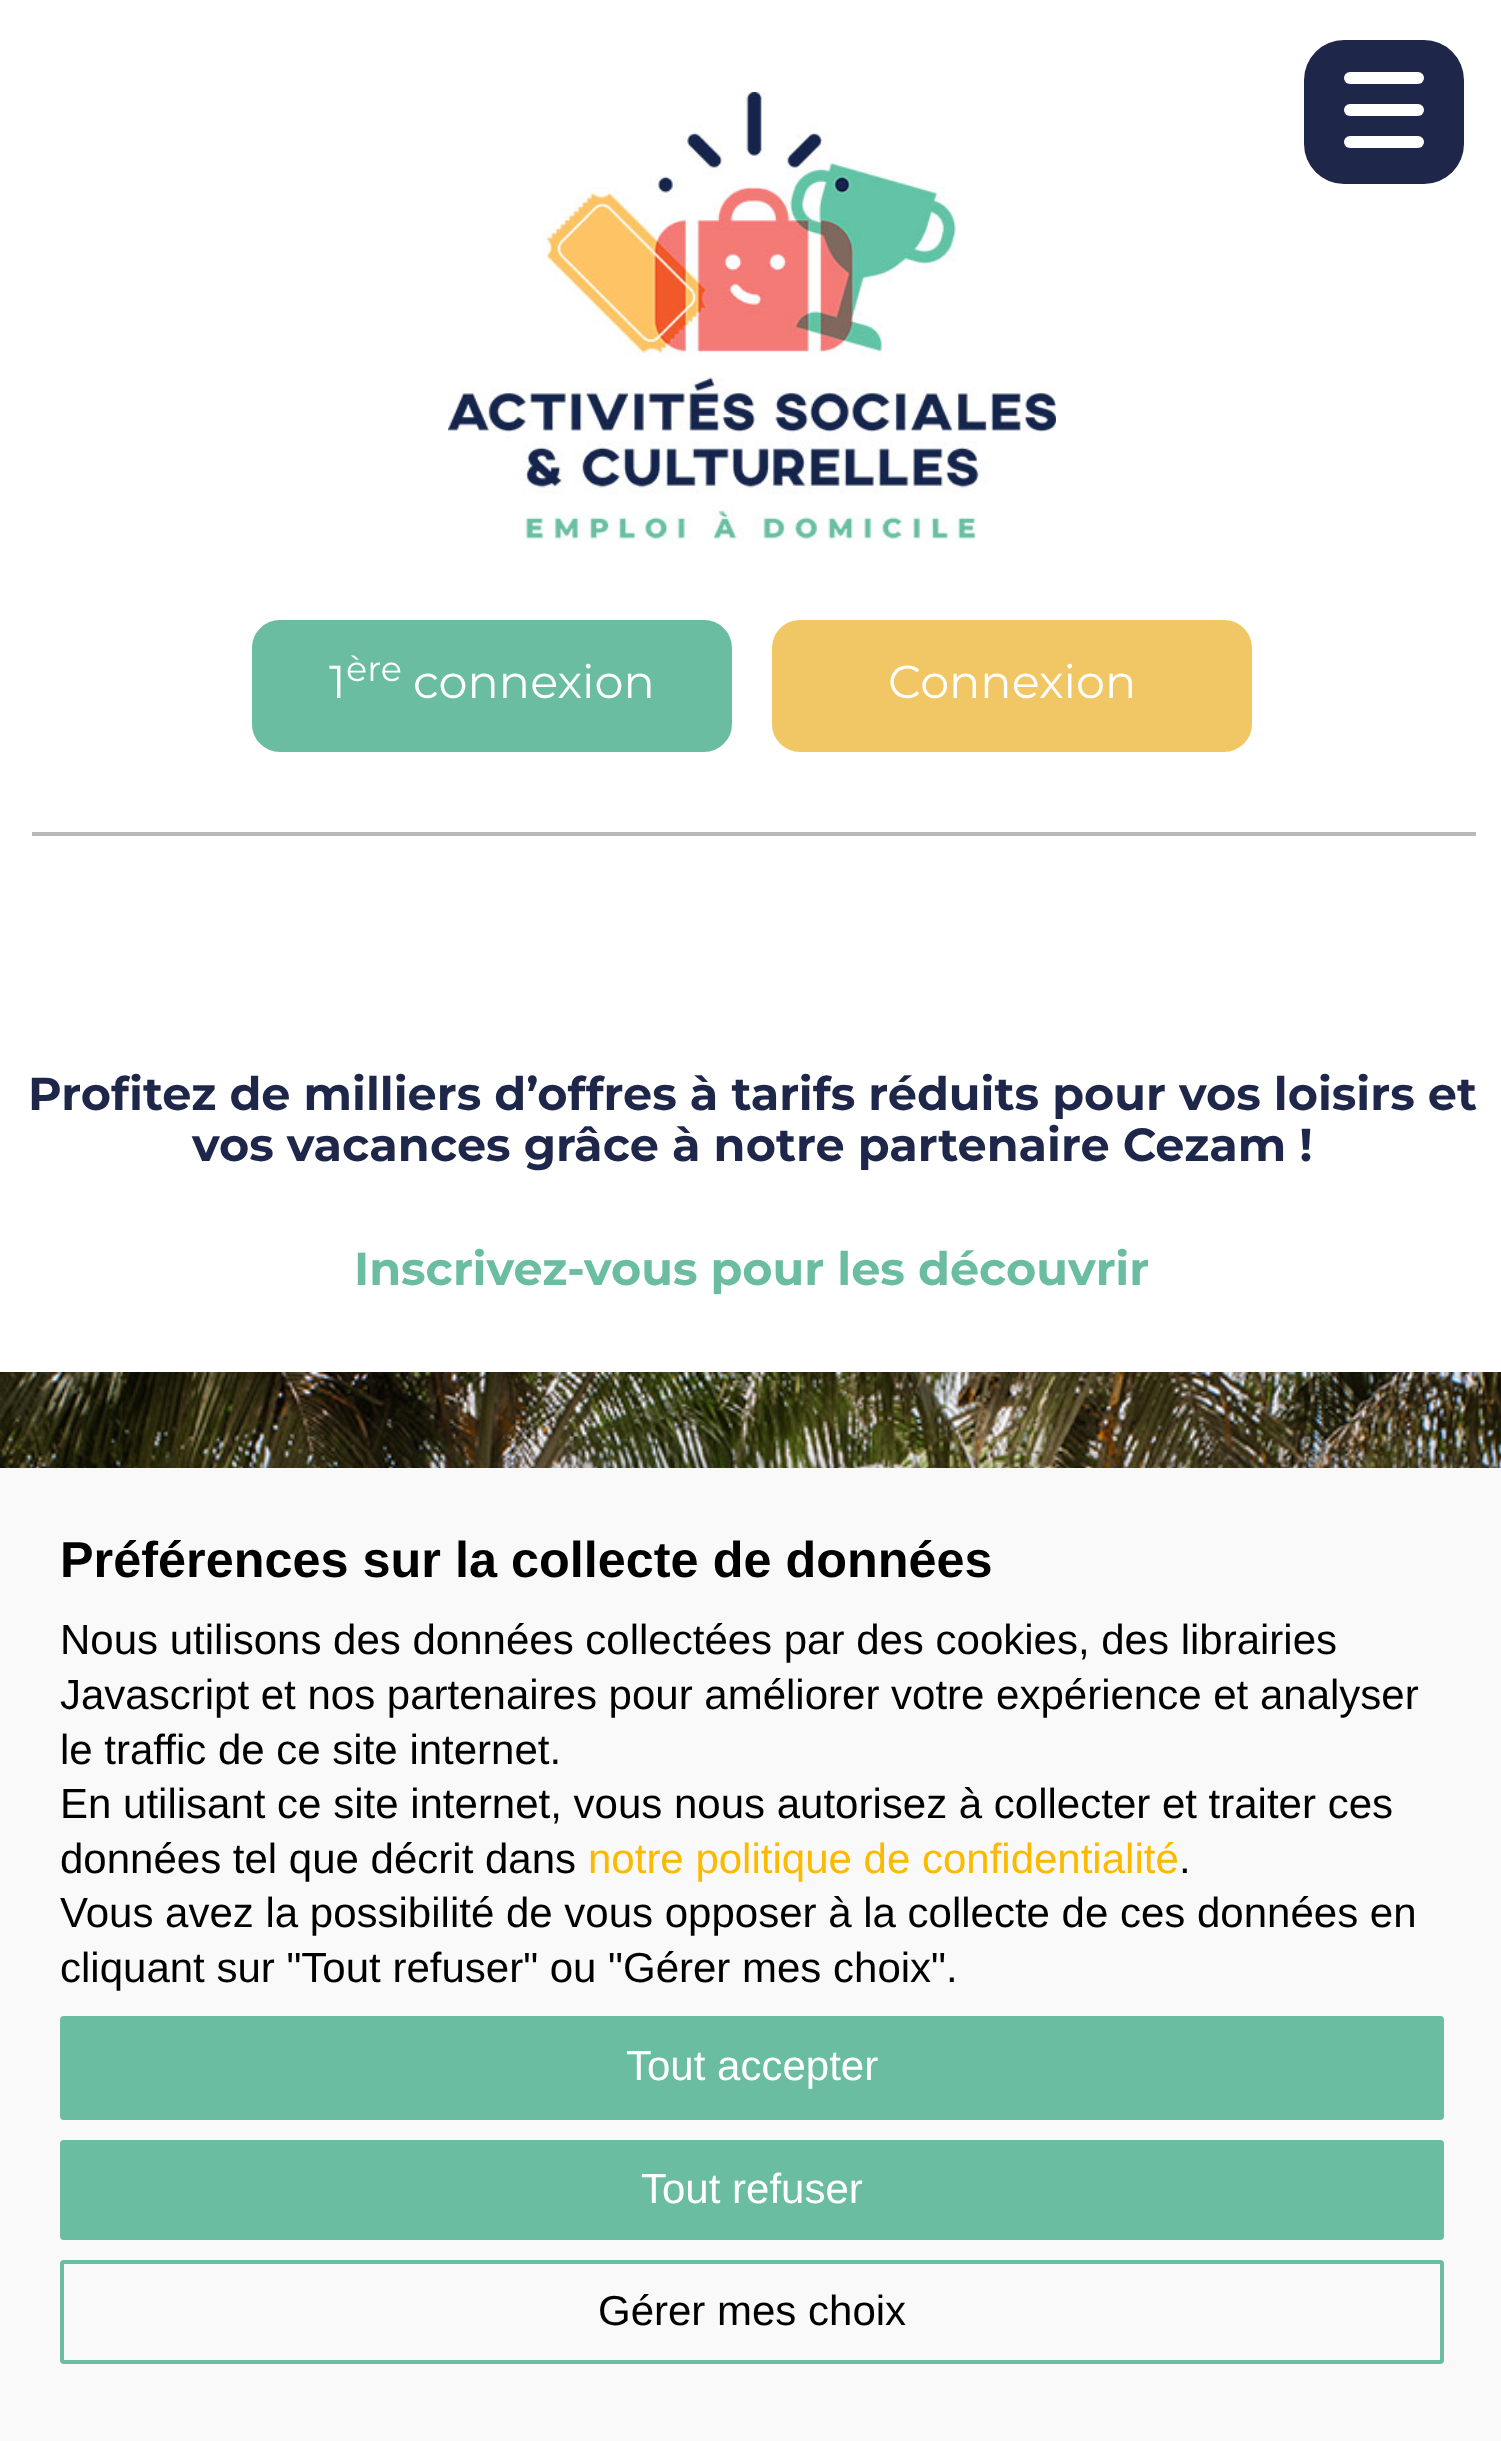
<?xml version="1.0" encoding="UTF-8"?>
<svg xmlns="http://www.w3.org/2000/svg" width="1501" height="2441">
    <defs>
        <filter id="blur1" x="-50%" y="-200%" width="200%" height="500%"><feGaussianBlur stdDeviation="10"/></filter>
    </defs>
    <rect width="100%" height="100%" fill="#FFFFFF"/>
    <rect x="1304" y="40" width="160" height="144" rx="40" fill="#1E274A"/>
    <rect x="1344" y="104" width="80" height="12" rx="6" fill="#FFFFFF"/>
    <rect x="1344" y="72" width="80" height="12" rx="6" fill="#FFFFFF"/>
    <rect x="1344" y="136" width="80" height="12" rx="6" fill="#FFFFFF"/>
    <rect x="32" y="832" width="1444" height="4" fill="#B8B8B8"/>
    <image x="448" y="92" width="608" height="448" href="img_01.png"/>
    <rect x="258" y="626" width="468" height="120" rx="22" fill="#6ABDA0" stroke="#6ABDA0" stroke-width="12"/>
    <text x="329" y="698" font-family="Montserrat" font-size="46.2" fill="#FFFFFF">1</text>
    <text x="346" y="681" font-family="Montserrat" font-size="35" fill="#FFFFFF">ère</text>
    <text x="413" y="698" font-family="Montserrat" font-size="46.2" fill="#FFFFFF">connexion</text>
    <rect x="778" y="626" width="468" height="120" rx="22" fill="#F1C765" stroke="#F1C765" stroke-width="12"/>
    <text x="888" y="698" font-family="Montserrat" font-size="46.2" fill="#FFFFFF">Connexion</text>
    <text x="28" y="1110" font-family="Montserrat" font-size="46.2" font-weight="700" fill="#1E274A">Profitez de milliers d’offres à tarifs réduits pour vos loisirs et</text>
    <text x="192" y="1161" font-family="Montserrat" font-size="46.2" font-weight="700" fill="#1E274A">vos vacances grâce à notre partenaire Cezam !</text>
    <text x="354" y="1285" font-family="Montserrat" font-size="46.2" font-weight="700" fill="#6ABDA0">Inscrivez-vous pour les découvrir</text>
    <image x="0" y="1372" width="1501" height="96" href="img_02.png"/>
    <rect x="-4" y="1456" width="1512" height="984" fill="#000000" fill-opacity="0.14" filter="url(#blur1)"/>
    <rect x="0" y="1468" width="1501" height="973" fill="#F9F9F9"/>
    <text x="60" y="1577" font-family="Liberation Sans" font-size="50.4" font-weight="700" fill="#000000">Préférences sur la collecte de données</text>
    <text font-family="Liberation Sans" font-size="42" fill="#000000">
        <tspan x="60" y="1654">Nous utilisons des données collectées par des cookies, des librairies</tspan>
        <tspan x="60" y="1709">Javascript et nos partenaires pour améliorer votre expérience et analyser</tspan>
        <tspan x="60" y="1764">le traffic de ce site internet.</tspan>
        <tspan x="60" y="1818">En utilisant ce site internet, vous nous autorisez à collecter et traiter ces</tspan>
        <tspan x="60" y="1873">données tel que décrit dans</tspan>
    </text>
    <text x="588" y="1873" font-family="Liberation Sans" font-size="42" fill="#FBBA00">notre politique de confidentialité</text>
    <text x="1179" y="1873" font-family="Liberation Sans" font-size="42" fill="#000000">.</text>
    <text font-family="Liberation Sans" font-size="42" fill="#000000">
        <tspan x="60" y="1927">Vous avez la possibilité de vous opposer à la collecte de ces données en</tspan>
        <tspan x="60" y="1982">cliquant sur "Tout refuser" ou "Gérer mes choix".</tspan>
    </text>
    <rect x="62" y="2018" width="1380" height="100" rx="2" fill="#6ABDA0" stroke="#6ABDA0" stroke-width="4"/>
    <text x="626" y="2080" font-family="Liberation Sans" font-size="42" fill="#FFFFFF">Tout accepter</text>
    <rect x="62" y="2142" width="1380" height="96" rx="2" fill="#6ABDA0" stroke="#6ABDA0" stroke-width="4"/>
    <text x="641" y="2203" font-family="Liberation Sans" font-size="42" fill="#FFFFFF">Tout refuser</text>
    <rect x="62" y="2262" width="1380" height="100" rx="2" fill="none" stroke="#6ABDA0" stroke-width="4"/>
    <text x="598" y="2325" font-family="Liberation Sans" font-size="42" fill="#000000">Gérer mes choix</text>
</svg>
